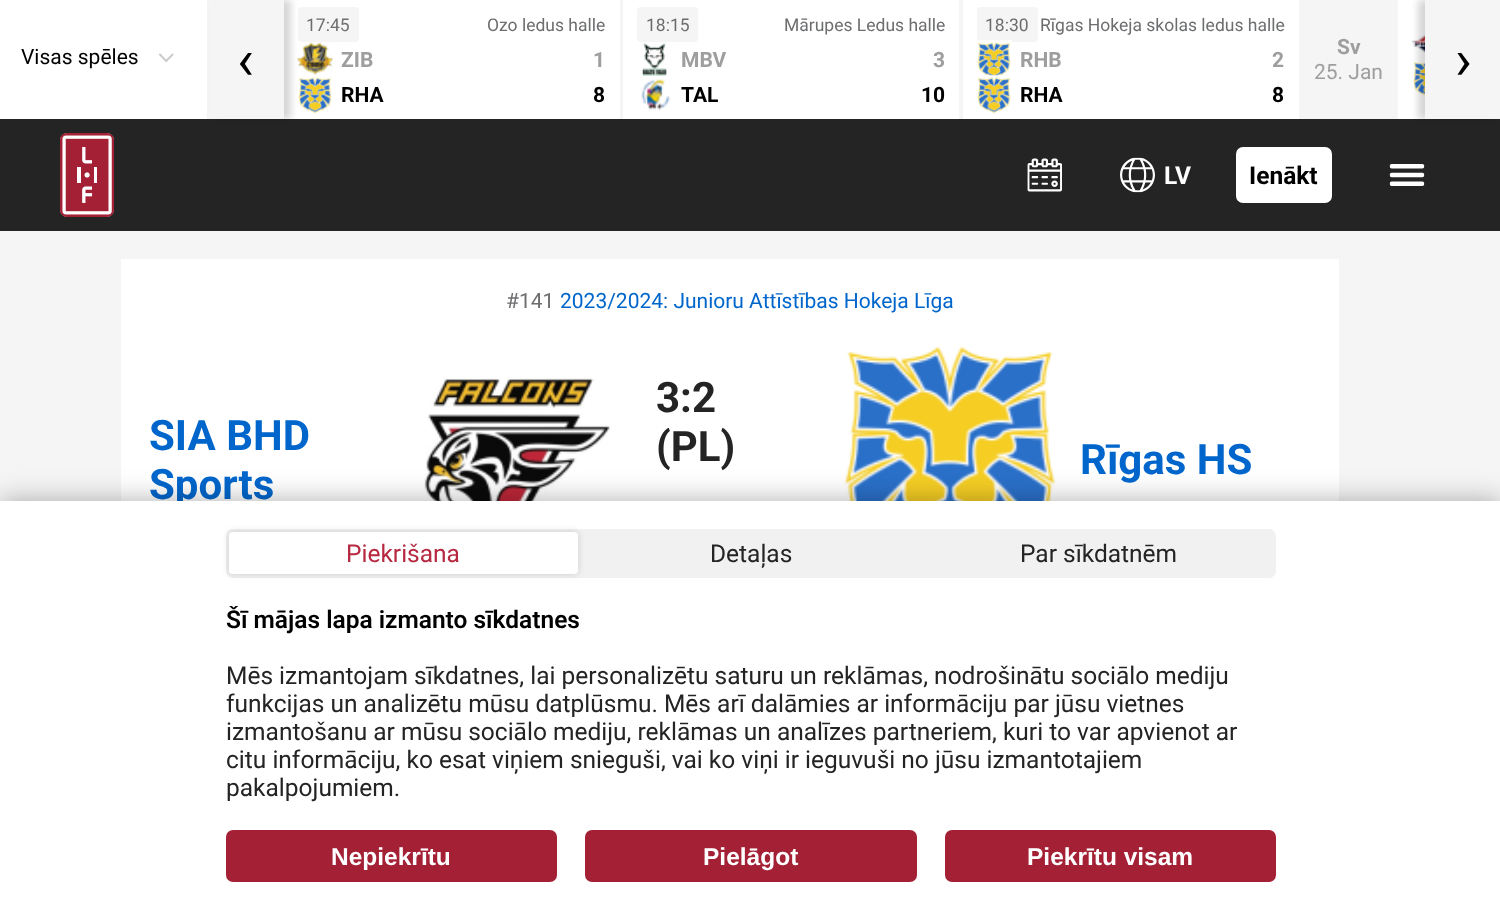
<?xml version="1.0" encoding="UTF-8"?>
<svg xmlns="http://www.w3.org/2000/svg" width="1500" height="910">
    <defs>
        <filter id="blur1" x="-50%" y="-200%" width="200%" height="500%"><feGaussianBlur stdDeviation="3.5"/></filter>
        <clipPath id="clip1"><path d="M 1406 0 H 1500 V 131 H 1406 Z M 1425 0 H 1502 V 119 H 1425 Z" clip-rule="evenodd"/></clipPath>
        <filter id="blur2" x="-50%" y="-200%" width="200%" height="500%"><feGaussianBlur stdDeviation="14"/></filter>
    </defs>
    <rect width="100%" height="100%" fill="#F5F5F5"/>
    <rect x="0" y="0" width="207" height="119" fill="#FFFFFF"/>
    <text x="21" y="64" font-family="Roboto" font-size="21" fill="#000000">Visas spēles</text>
    <image x="159" y="53" width="15" height="10" href="img_01.png"/>
    <rect x="284" y="0" width="336" height="119" fill="#FFFFFF"/>
    <rect x="298" y="7" width="61" height="35" rx="4" fill="#F5F5F5"/>
    <text x="306" y="31" font-family="Roboto" font-size="17.5" fill="#6C6D6F">17:45</text>
    <text x="487" y="31" font-family="Roboto" font-size="17.5" fill="#6C6D6F">Ozo ledus halle</text>
    <image x="297" y="42" width="36" height="33" href="img_02.png"/>
    <text x="341" y="67" font-family="Roboto" font-size="21" font-weight="700" fill="#9E9E9E">ZIB</text>
    <text x="593" y="67" font-family="Roboto" font-size="21" font-weight="700" fill="#9E9E9E">1</text>
    <image x="298" y="77" width="34" height="37" href="img_03.png"/>
    <text x="341" y="102" font-family="Roboto" font-size="21" font-weight="700" fill="#000000">RHA</text>
    <text x="593" y="102" font-family="Roboto" font-size="21" font-weight="700" fill="#000000">8</text>
    <rect x="623" y="0" width="336" height="119" fill="#FFFFFF"/>
    <rect x="637" y="7" width="61" height="35" rx="4" fill="#F5F5F5"/>
    <text x="646" y="31" font-family="Roboto" font-size="17.5" fill="#6C6D6F">18:15</text>
    <text x="784" y="31" font-family="Roboto" font-size="17.5" fill="#6C6D6F">Mārupes Ledus halle</text>
    <image x="642" y="43" width="25" height="33" href="img_04.png"/>
    <text x="681" y="67" font-family="Roboto" font-size="21" font-weight="700" fill="#9E9E9E">MBV</text>
    <text x="933" y="67" font-family="Roboto" font-size="21" font-weight="700" fill="#9E9E9E">3</text>
    <image x="641" y="79" width="29" height="32" href="img_05.png"/>
    <text x="681" y="102" font-family="Roboto" font-size="21" font-weight="700" fill="#000000">TAL</text>
    <text x="921" y="102" font-family="Roboto" font-size="21" font-weight="700" fill="#000000">10</text>
    <rect x="963" y="0" width="336" height="119" fill="#FFFFFF"/>
    <rect x="977" y="7" width="61" height="35" rx="4" fill="#F5F5F5"/>
    <text x="985" y="31" font-family="Roboto" font-size="17.5" fill="#6C6D6F">18:30</text>
    <text x="1040" y="31" font-family="Roboto" font-size="17.5" fill="#6C6D6F">Rīgas Hokeja skolas ledus halle</text>
    <image x="977" y="40" width="35" height="39" href="img_06.png"/>
    <text x="1020" y="67" font-family="Roboto" font-size="21" font-weight="700" fill="#9E9E9E">RHB</text>
    <text x="1272" y="67" font-family="Roboto" font-size="21" font-weight="700" fill="#9E9E9E">2</text>
    <image x="977" y="75" width="34" height="39" href="img_07.png"/>
    <text x="1020" y="102" font-family="Roboto" font-size="21" font-weight="700" fill="#000000">RHA</text>
    <text x="1272" y="102" font-family="Roboto" font-size="21" font-weight="700" fill="#000000">8</text>
    <text x="1337" y="54" font-family="Roboto" font-size="21" font-weight="700" fill="#9E9E9E">Sv</text>
    <text x="1314" y="79" font-family="Roboto" font-size="21" fill="#9E9E9E">25. Jan</text>
    <rect x="1398" y="0" width="27" height="119" fill="#FFFFFF"/>
    <image x="1412" y="34" width="13" height="19" href="img_08.png"/>
    <image x="1413" y="62" width="12" height="34" href="img_09.png"/>
    <rect x="0" y="119" width="1500" height="112" fill="#242424"/>
    <rect x="214" y="0" width="77" height="119" fill="#000000" fill-opacity="0.16" filter="url(#blur1)"/>
    <rect x="209" y="0" width="75" height="119" fill="#F5F5F5"/>
    <text x="237" y="79" font-family="Roboto" font-size="56" fill="#000000">‹</text>
    <g clip-path="url(#clip1)">
        <rect x="1418" y="0" width="77" height="119" fill="#000000" fill-opacity="0.16" filter="url(#blur1)"/>
    </g>
    <text x="1455" y="79" font-family="Roboto" font-size="56" fill="#000000">›</text>
    <image x="60" y="133" width="54" height="84" href="img_10.png"/>
    <image x="1027" y="158" width="35" height="34" href="img_11.png"/>
    <image x="1120" y="157" width="35" height="36" href="img_12.png"/>
    <text x="1164" y="184" font-family="Roboto" font-size="24.5" font-weight="700" fill="#FFFFFF">LV</text>
    <rect x="1236" y="147" width="96" height="56" rx="7" fill="#FFFFFF"/>
    <text x="1249" y="184" font-family="Roboto" font-size="24.5" font-weight="700" fill="#000000">Ienākt</text>
    <image x="1389" y="164" width="36" height="22" href="img_13.png"/>
    <rect x="121" y="259" width="1218" height="242" fill="#FFFFFF"/>
    <text x="506" y="308" font-family="Roboto" font-size="21" fill="#6C6D6F">#141</text>
    <text x="560" y="308" font-family="Roboto" font-size="21" fill="#0066CC">2023/2024: Junioru Attīstības Hokeja Līga</text>
    <text font-family="Roboto" font-size="42" font-weight="700" fill="#0066CC">
        <tspan x="149" y="450">SIA BHD</tspan>
        <tspan x="149" y="499">Sports</tspan>
    </text>
    <image x="424" y="378" width="187" height="123" href="img_14.png"/>
    <text font-family="Roboto" font-size="42" font-weight="700" fill="#242424">
        <tspan x="656" y="412">3:2</tspan>
        <tspan x="656" y="461">(PL)</tspan>
    </text>
    <image x="844" y="346" width="211" height="155" href="img_15.png"/>
    <text x="1080" y="474" font-family="Roboto" font-size="42" font-weight="700" fill="#0066CC">Rīgas HS</text>
    <rect x="0" y="501" width="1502" height="409" fill="#000000" fill-opacity="0.32" filter="url(#blur2)"/>
    <rect x="0" y="501" width="1500" height="409" fill="#FFFFFF"/>
    <rect x="226" y="529" width="1050" height="49" rx="7" fill="#F1F1F1"/>
    <rect x="229" y="532" width="349" height="42" rx="4" fill="#000000" fill-opacity="0.16" filter="url(#blur1)"/>
    <rect x="229" y="532" width="349" height="42" rx="4" fill="#FFFFFF"/>
    <text x="346" y="562" font-family="Roboto" font-size="24.5" fill="#B62940">Piekrišana</text>
    <text x="710" y="562" font-family="Roboto" font-size="24.5" fill="#242424">Detaļas</text>
    <text x="1020" y="562" font-family="Roboto" font-size="24.5" fill="#242424">Par sīkdatnēm</text>
    <text x="226" y="628" font-family="Roboto" font-size="24.5" font-weight="600" fill="#000000">Šī mājas lapa izmanto sīkdatnes</text>
    <text font-family="Roboto" font-size="24.5" fill="#242424">
        <tspan x="226" y="684">Mēs izmantojam sīkdatnes, lai personalizētu saturu un reklāmas, nodrošinātu sociālo mediju</tspan>
        <tspan x="226" y="712">funkcijas un analizētu mūsu datplūsmu. Mēs arī dalāmies ar informāciju par jūsu vietnes</tspan>
        <tspan x="226" y="740">izmantošanu ar mūsu sociālo mediju, reklāmas un analīzes partneriem, kuri to var apvienot ar</tspan>
        <tspan x="226" y="768">citu informāciju, ko esat viņiem snieguši, vai ko viņi ir ieguvuši no jūsu izmantotajiem</tspan>
        <tspan x="226" y="796">pakalpojumiem.</tspan>
    </text>
    <rect x="227" y="831" width="329" height="50" rx="6" fill="#A32035" stroke="#A32035" stroke-width="2"/>
    <text x="331" y="865" font-family="Liberation Sans" font-size="24.5" font-weight="700" fill="#FFFFFF">Nepiekrītu</text>
    <rect x="586" y="831" width="330" height="50" rx="6" fill="#A32035" stroke="#A32035" stroke-width="2"/>
    <text x="703" y="865" font-family="Liberation Sans" font-size="24.5" font-weight="700" fill="#FFFFFF">Pielāgot</text>
    <rect x="946" y="831" width="329" height="50" rx="6" fill="#A32035" stroke="#A32035" stroke-width="2"/>
    <text x="1027" y="865" font-family="Liberation Sans" font-size="24.5" font-weight="700" fill="#FFFFFF">Piekrītu visam</text>
</svg>
